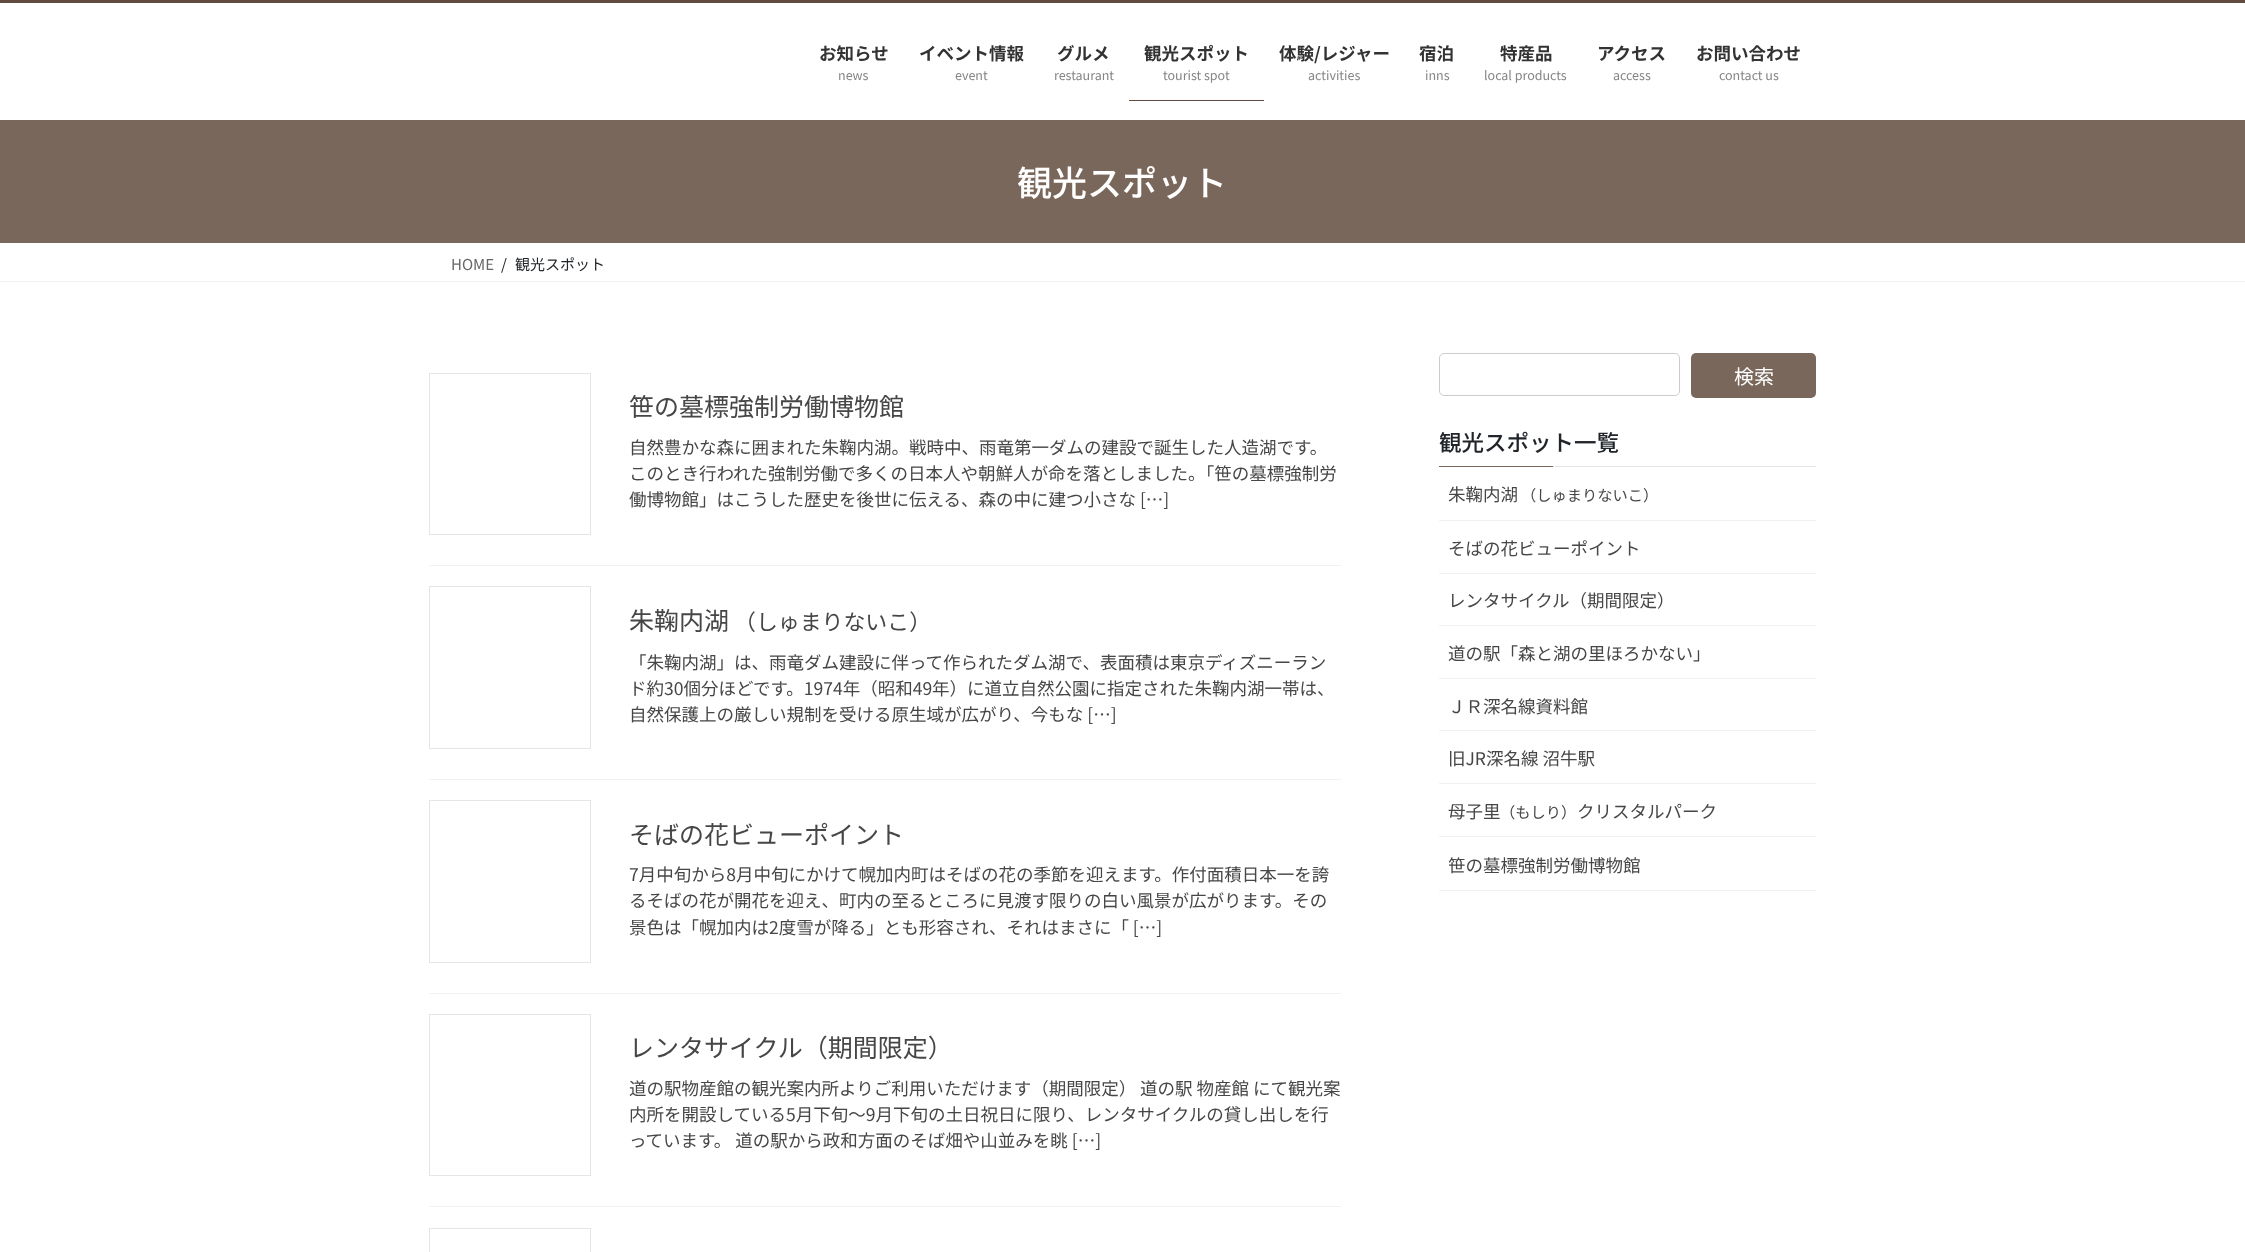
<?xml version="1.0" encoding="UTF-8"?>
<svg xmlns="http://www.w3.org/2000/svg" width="2245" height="1252">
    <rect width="100%" height="100%" fill="#FFFFFF"/>
    <rect x="0" y="0" width="2245" height="3" fill="#614C3F"/>
    <text x="819" y="60" font-family="Noto Sans JP" font-size="17.5" font-weight="700" fill="#333333">お知らせ</text>
    <text x="838" y="80" font-family="Noto Sans JP" font-size="12.5" fill="#858585">news</text>
    <text x="919" y="60" font-family="Noto Sans JP" font-size="17.5" font-weight="700" fill="#333333">イベント情報</text>
    <text x="955" y="80" font-family="Noto Sans JP" font-size="12.5" fill="#858585">event</text>
    <text x="1057" y="60" font-family="Noto Sans JP" font-size="17.5" font-weight="700" fill="#333333">グルメ</text>
    <text x="1054" y="80" font-family="Noto Sans JP" font-size="12.5" fill="#858585">restaurant</text>
    <text x="1144" y="60" font-family="Noto Sans JP" font-size="17.5" font-weight="700" fill="#333333">観光スポット</text>
    <text x="1163" y="80" font-family="Noto Sans JP" font-size="12.5" fill="#858585">tourist spot</text>
    <rect x="1129" y="100" width="135" height="1" fill="#614C3F"/>
    <text x="1279" y="60" font-family="Noto Sans JP" font-size="17.5" font-weight="700" fill="#333333">体験/レジャー</text>
    <text x="1308" y="80" font-family="Noto Sans JP" font-size="12.5" fill="#858585">activities</text>
    <text x="1419" y="60" font-family="Noto Sans JP" font-size="17.5" font-weight="700" fill="#333333">宿泊</text>
    <text x="1425" y="80" font-family="Noto Sans JP" font-size="12.5" fill="#858585">inns</text>
    <text x="1500" y="60" font-family="Noto Sans JP" font-size="17.5" font-weight="700" fill="#333333">特産品</text>
    <text x="1484" y="80" font-family="Noto Sans JP" font-size="12.5" fill="#858585">local products</text>
    <text x="1597" y="60" font-family="Noto Sans JP" font-size="17.5" font-weight="700" fill="#333333">アクセス</text>
    <text x="1613" y="80" font-family="Noto Sans JP" font-size="12.5" fill="#858585">access</text>
    <text x="1696" y="60" font-family="Noto Sans JP" font-size="17.5" font-weight="700" fill="#333333">お問い合わせ</text>
    <text x="1719" y="80" font-family="Noto Sans JP" font-size="12.5" fill="#858585">contact us</text>
    <rect x="0" y="120" width="2245" height="123" fill="#7A675B"/>
    <text x="1017" y="196" font-family="Noto Sans JP" font-size="35" font-weight="500" fill="#FFFFFF">観光スポット</text>
    <rect x="0" y="281" width="2245" height="1" fill="#F2F2F2"/>
    <text x="451" y="270" font-family="Noto Sans JP" font-size="15" fill="#666666">HOME</text>
    <text x="501" y="270" font-family="Noto Sans JP" font-size="15" fill="#212529">/</text>
    <text x="515" y="270" font-family="Noto Sans JP" font-size="15" fill="#212529">観光スポット</text>
    <rect x="429" y="565" width="912" height="1" fill="#F2F2F2"/>
    <rect x="429.5" y="373.5" width="161" height="161" fill="none" stroke="#E5E5E5"/>
    <text x="629" y="416" font-family="Noto Sans JP" font-size="25" fill="#464646">笹の墓標強制労働博物館</text>
    <text font-family="Noto Sans JP" font-size="17.5" fill="#464646">
        <tspan x="629" y="454">自然豊かな森に囲まれた朱鞠内湖。戦時中、雨竜第一ダムの建設で誕生した人造湖です。</tspan>
        <tspan x="629" y="480">このとき行われた強制労働で多くの日本人や朝鮮人が命を落としました。「笹の墓標強制労</tspan>
        <tspan x="629" y="506">働博物館」はこうした歴史を後世に伝える、森の中に建つ小さな […]</tspan>
    </text>
    <rect x="429" y="779" width="912" height="1" fill="#F2F2F2"/>
    <rect x="429.5" y="586.5" width="161" height="162" fill="none" stroke="#E5E5E5"/>
    <text x="629" y="630" font-family="Noto Sans JP" font-size="25" fill="#464646">朱鞠内湖</text>
    <text x="734" y="630" font-family="Noto Sans JP" font-size="21.9" fill="#464646">（しゅまりないこ）</text>
    <text font-family="Noto Sans JP" font-size="17.5" fill="#464646">
        <tspan x="629" y="669">「朱鞠内湖」は、雨竜ダム建設に伴って作られたダム湖で、表面積は東京ディズニーラン</tspan>
        <tspan x="629" y="695">ド約30個分ほどです。1974年（昭和49年）に道立自然公園に指定された朱鞠内湖一帯は、</tspan>
        <tspan x="629" y="721">自然保護上の厳しい規制を受ける原生域が広がり、今もな […]</tspan>
    </text>
    <rect x="429" y="993" width="912" height="1" fill="#F2F2F2"/>
    <rect x="429.5" y="800.5" width="161" height="162" fill="none" stroke="#E5E5E5"/>
    <text x="629" y="844" font-family="Noto Sans JP" font-size="25" fill="#464646">そばの花ビューポイント</text>
    <text font-family="Noto Sans JP" font-size="17.5" fill="#464646">
        <tspan x="629" y="881">7月中旬から8月中旬にかけて幌加内町はそばの花の季節を迎えます。作付面積日本一を誇</tspan>
        <tspan x="629" y="907">るそばの花が開花を迎え、町内の至るところに見渡す限りの白い風景が広がります。その</tspan>
        <tspan x="629" y="934">景色は「幌加内は2度雪が降る」とも形容され、それはまさに「 […]</tspan>
    </text>
    <rect x="429" y="1206" width="912" height="1" fill="#F2F2F2"/>
    <rect x="429.5" y="1014.5" width="161" height="161" fill="none" stroke="#E5E5E5"/>
    <text x="629" y="1057" font-family="Noto Sans JP" font-size="25" fill="#464646">レンタサイクル（期間限定）</text>
    <text font-family="Noto Sans JP" font-size="17.5" fill="#464646">
        <tspan x="629" y="1095">道の駅物産館の観光案内所よりご利用いただけます（期間限定） 道の駅 物産館 にて観光案</tspan>
        <tspan x="629" y="1121">内所を開設している5月下旬～9月下旬の土日祝日に限り、レンタサイクルの貸し出しを行</tspan>
        <tspan x="629" y="1147">っています。 道の駅から政和方面のそば畑や山並みを眺 […]</tspan>
    </text>
    <rect x="429.5" y="1228.5" width="161" height="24" fill="none" stroke="#E5E5E5"/>
    <rect x="1439.5" y="353.5" width="240" height="42" rx="4.5" fill="none" stroke="#CCCCCC"/>
    <rect x="1691" y="353" width="125" height="45" rx="5" fill="#7A675B"/>
    <text x="1734" y="384" font-family="Noto Sans JP" font-size="20" fill="#FFFFFF">検索</text>
    <rect x="1553" y="466" width="263" height="1" fill="#E6E6E6"/>
    <text x="1439" y="451" font-family="Noto Sans JP" font-size="22.5" font-weight="500" fill="#212529">観光スポット一覧</text>
    <rect x="1439" y="466" width="114" height="1" fill="#7A675B"/>
    <rect x="1439" y="520" width="377" height="1" fill="#F2F2F2"/>
    <text x="1448" y="501" font-family="Noto Sans JP" font-size="17.5" fill="#464646">朱鞠内湖</text>
    <text x="1521" y="501" font-family="Noto Sans JP" font-size="15.25" fill="#464646">（しゅまりないこ）</text>
    <rect x="1439" y="573" width="377" height="1" fill="#F2F2F2"/>
    <text x="1448" y="555" font-family="Noto Sans JP" font-size="17.5" fill="#464646">そばの花ビューポイント</text>
    <rect x="1439" y="625" width="377" height="1" fill="#F2F2F2"/>
    <text x="1448" y="607" font-family="Noto Sans JP" font-size="17.5" fill="#464646">レンタサイクル（期間限定）</text>
    <rect x="1439" y="678" width="377" height="1" fill="#F2F2F2"/>
    <text x="1448" y="660" font-family="Noto Sans JP" font-size="17.5" fill="#464646">道の駅「森と湖の里ほろかない」</text>
    <rect x="1439" y="730" width="377" height="1" fill="#F2F2F2"/>
    <text x="1448" y="713" font-family="Noto Sans JP" font-size="17.5" fill="#464646">ＪＲ深名線資料館</text>
    <rect x="1439" y="783" width="377" height="1" fill="#F2F2F2"/>
    <text x="1448" y="765" font-family="Noto Sans JP" font-size="17.5" fill="#464646">旧JR深名線 沼牛駅</text>
    <rect x="1439" y="836" width="377" height="1" fill="#F2F2F2"/>
    <text x="1448" y="818" font-family="Noto Sans JP" font-size="17.5" fill="#464646">母子里</text>
    <text x="1500" y="818" font-family="Noto Sans JP" font-size="15.25" fill="#464646">（もしり）</text>
    <text x="1577" y="818" font-family="Noto Sans JP" font-size="17.5" fill="#464646">クリスタルパーク</text>
    <rect x="1439" y="890" width="377" height="1" fill="#F2F2F2"/>
    <text x="1448" y="872" font-family="Noto Sans JP" font-size="17.5" fill="#464646">笹の墓標強制労働博物館</text>
</svg>
